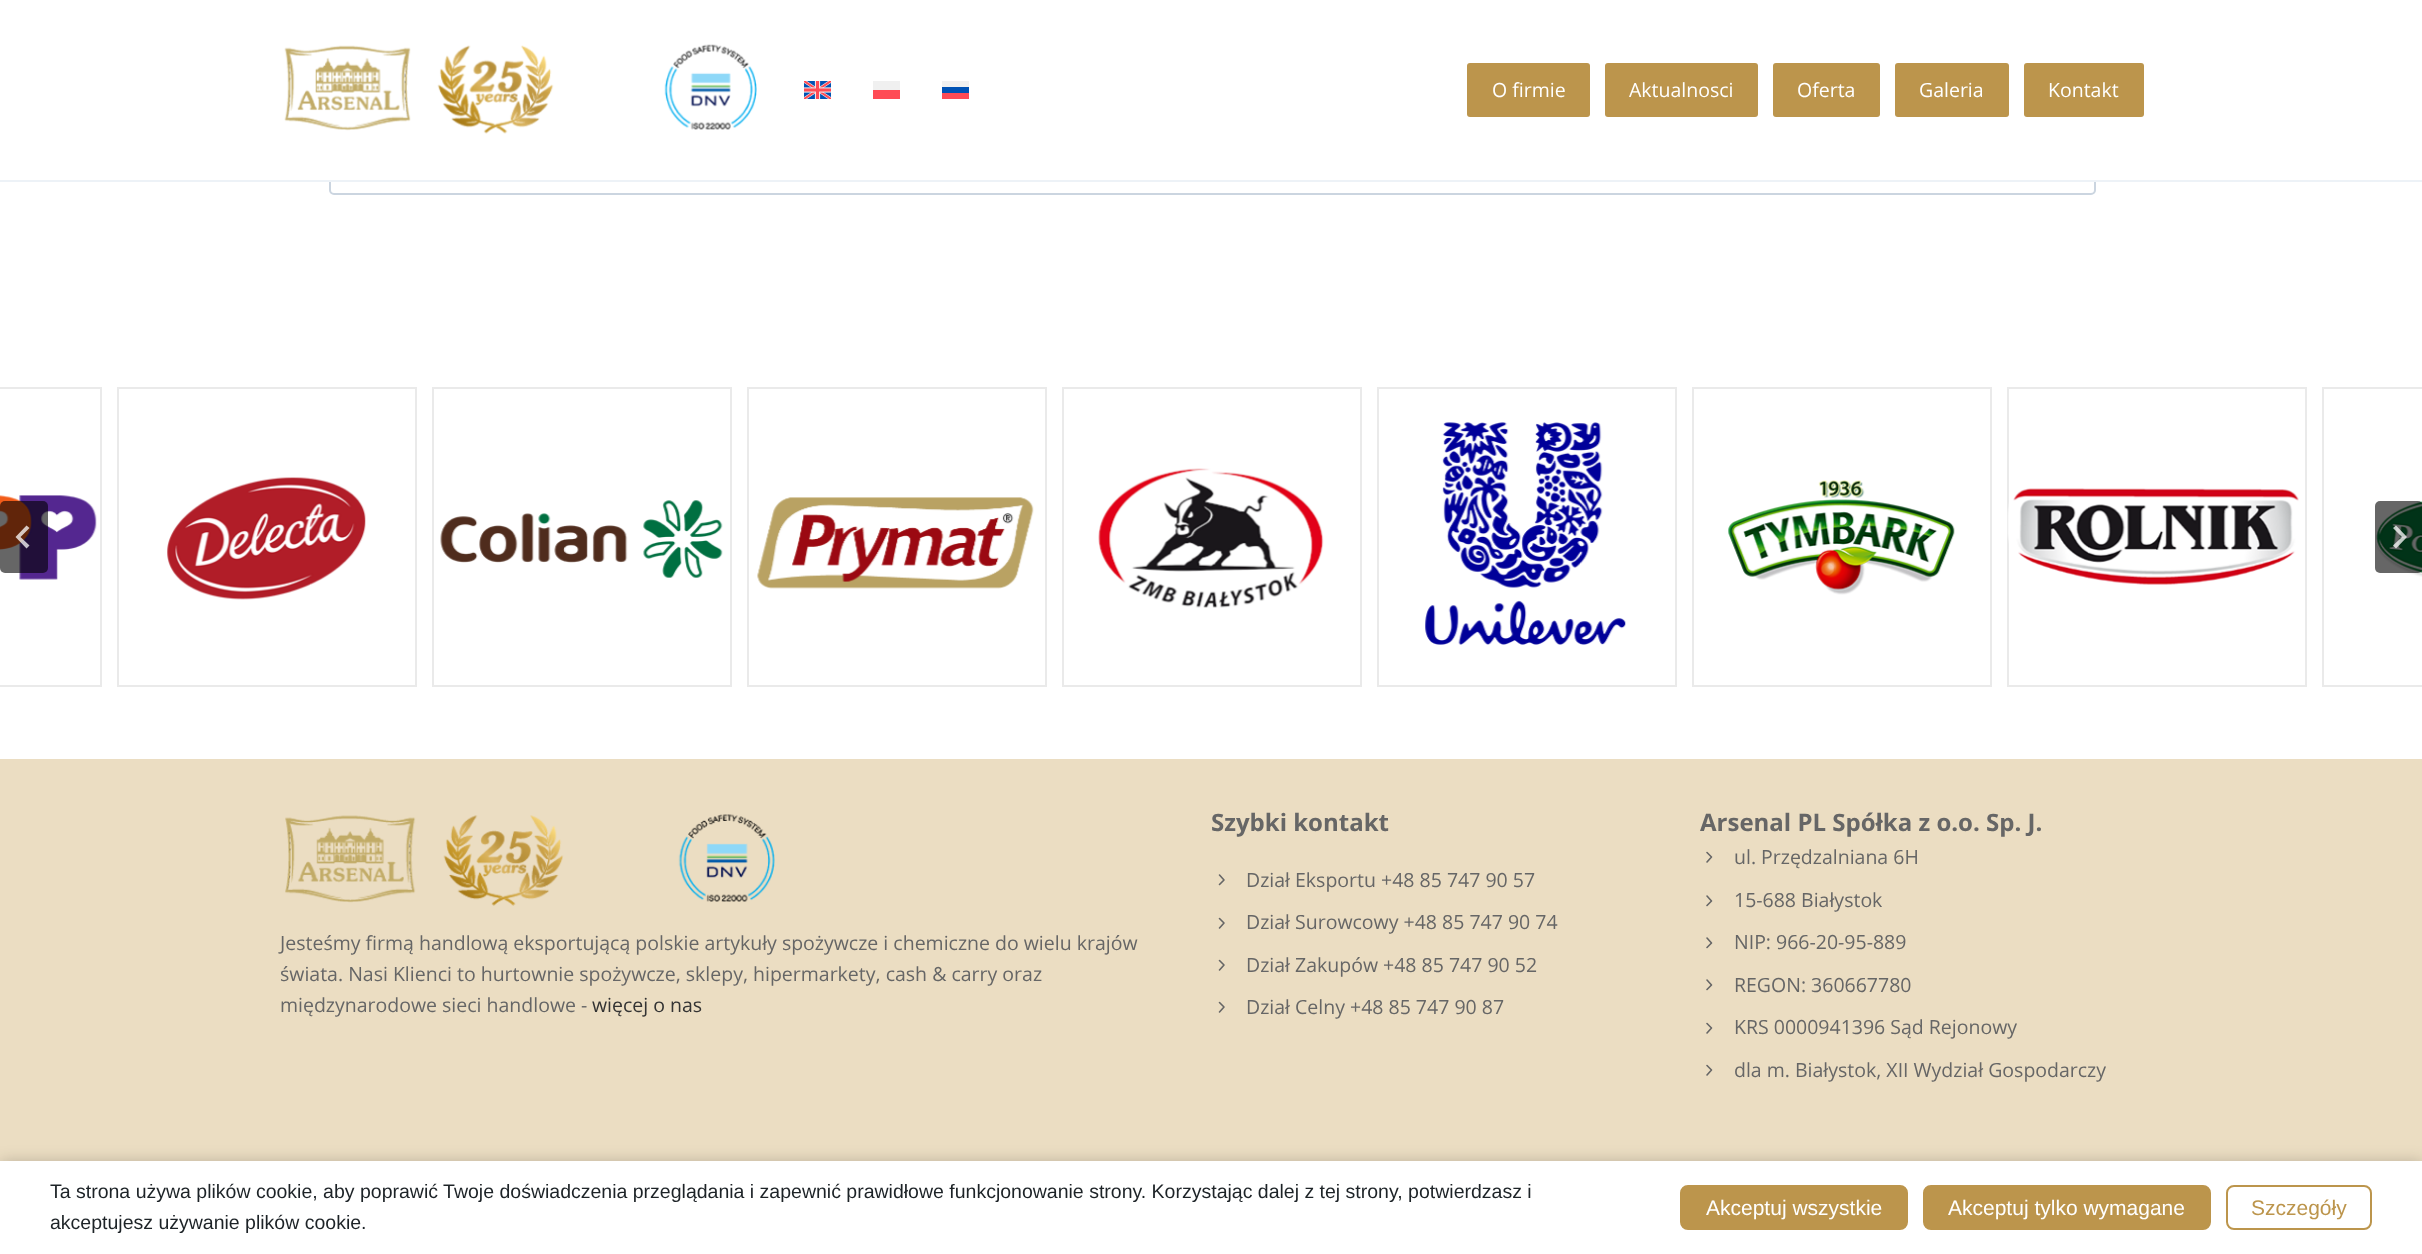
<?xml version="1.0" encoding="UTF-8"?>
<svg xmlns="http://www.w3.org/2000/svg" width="2422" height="1254">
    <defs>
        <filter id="blur1" x="-50%" y="-200%" width="200%" height="500%"><feGaussianBlur stdDeviation="7.5"/></filter>
    </defs>
    <rect width="100%" height="100%" fill="#FFFFFF"/>
    <rect x="330" y="139" width="1765" height="55" rx="4" fill="none" stroke="#CBD5E0" stroke-width="2"/>
    <rect x="329" y="138" width="1767" height="42" fill="#FFFFFF"/>
    <rect x="0" y="180" width="2422" height="2" fill="#EDF2F7"/>
    <image x="284" y="44" width="473" height="90" href="img_01.png"/>
    <image x="804" y="81" width="27" height="18" href="img_02.png"/>
    <rect x="873" y="81" width="27" height="9" fill="#F0F0F0"/>
    <rect x="873" y="90" width="27" height="9" fill="#FF4B55"/>
    <rect x="942" y="81" width="27" height="6" fill="#F0F0F0"/>
    <rect x="942" y="87" width="27" height="6" fill="#0052B4"/>
    <rect x="942" y="93" width="27" height="6" fill="#FF4B55"/>
    <rect x="1467" y="63" width="123" height="54" rx="3" fill="#BC954C"/>
    <text x="1492" y="97" font-family="Open Sans" font-size="19.5" fill="#FFFFFF">O firmie</text>
    <rect x="1605" y="63" width="153" height="54" rx="3" fill="#BC954C"/>
    <text x="1629" y="97" font-family="Open Sans" font-size="19.5" fill="#FFFFFF">Aktualnosci</text>
    <rect x="1773" y="63" width="107" height="54" rx="3" fill="#BC954C"/>
    <text x="1797" y="97" font-family="Open Sans" font-size="19.5" fill="#FFFFFF">Oferta</text>
    <rect x="1895" y="63" width="114" height="54" rx="3" fill="#BC954C"/>
    <text x="1919" y="97" font-family="Open Sans" font-size="19.5" fill="#FFFFFF">Galeria</text>
    <rect x="2024" y="63" width="120" height="54" rx="3" fill="#BC954C"/>
    <text x="2048" y="97" font-family="Open Sans" font-size="19.5" fill="#FFFFFF">Kontakt</text>
    <rect x="-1" y="388" width="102" height="298" fill="none" stroke="#EAEAEA" stroke-width="2"/>
    <image x="0" y="495" width="97" height="85" href="img_03.png"/>
    <rect x="118" y="388" width="298" height="298" fill="none" stroke="#EAEAEA" stroke-width="2"/>
    <image x="167" y="477" width="199" height="123" href="img_04.png"/>
    <rect x="433" y="388" width="298" height="298" fill="none" stroke="#EAEAEA" stroke-width="2"/>
    <image x="440" y="500" width="283" height="78" href="img_05.png"/>
    <rect x="748" y="388" width="298" height="298" fill="none" stroke="#EAEAEA" stroke-width="2"/>
    <image x="757" y="497" width="277" height="92" href="img_06.png"/>
    <rect x="1063" y="388" width="298" height="298" fill="none" stroke="#EAEAEA" stroke-width="2"/>
    <image x="1098" y="468" width="226" height="140" href="img_07.png"/>
    <rect x="1378" y="388" width="298" height="298" fill="none" stroke="#EAEAEA" stroke-width="2"/>
    <image x="1425" y="422" width="201" height="223" href="img_08.png"/>
    <rect x="1693" y="388" width="298" height="298" fill="none" stroke="#EAEAEA" stroke-width="2"/>
    <image x="1728" y="480" width="227" height="115" href="img_09.png"/>
    <rect x="2008" y="388" width="298" height="298" fill="none" stroke="#EAEAEA" stroke-width="2"/>
    <image x="2007" y="488" width="292" height="97" href="img_10.png"/>
    <rect x="2323" y="388" width="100" height="298" fill="none" stroke="#EAEAEA" stroke-width="2"/>
    <image x="2376" y="501" width="46" height="76" href="img_11.png"/>
    <rect x="0" y="501" width="48" height="72" rx="5" fill="#000000" fill-opacity="0.6"/>
    <path d="M 26.5 525.5 L 29.5 528 L 20.5 537 L 29.5 545.5 L 26.5 548.5 L 15.5 537 Z" fill="#FFFFFF" fill-opacity="0.75"/>
    <rect x="2375" y="501" width="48" height="72" rx="5" fill="#000000" fill-opacity="0.6"/>
    <path d="M 2396 525.5 L 2393 528 L 2402 537 L 2393 545.5 L 2396 548.5 L 2407 537 Z" fill="#FFFFFF" fill-opacity="0.75"/>
    <rect x="0" y="759" width="2422" height="402" fill="#EBDDC2"/>
    <image x="285" y="814" width="490" height="92" href="img_12.png"/>
    <text font-family="Open Sans" font-size="19.5" fill="#666666">
        <tspan x="280" y="950">Jesteśmy firmą handlową eksportującą polskie artykuły spożywcze i chemiczne do wielu krajów</tspan>
        <tspan x="280" y="981">świata. Nasi Klienci to hurtownie spożywcze, sklepy, hipermarkety, cash &amp; carry oraz</tspan>
        <tspan x="280" y="1012">międzynarodowe sieci handlowe -</tspan>
    </text>
    <text x="592" y="1012" font-family="Open Sans" font-size="19.5" fill="#333333">więcej o nas</text>
    <text x="1211" y="831" font-family="Open Sans" font-size="24" font-weight="700" fill="#666666">Szybki kontakt</text>
    <path d="M 1219.5 884.5 L 1224 880 L 1219.5 875 M 1219.5 928 L 1224 923 L 1219.5 918.5" fill="none" stroke="#666666" stroke-width="1.6" stroke-linecap="round" stroke-linejoin="round"/>
    <text x="1246" y="887" font-family="Open Sans" font-size="19.5" fill="#666666">Dział Eksportu +48 85 747 90 57</text>
    <text x="1246" y="929" font-family="Open Sans" font-size="19.5" fill="#666666">Dział Surowcowy +48 85 747 90 74</text>
    <path d="M 1219.5 970 L 1224 965 L 1219.5 960.5 M 1219.5 1012 L 1224 1007 L 1219.5 1002.5" fill="none" stroke="#666666" stroke-width="1.6" stroke-linecap="round" stroke-linejoin="round"/>
    <text x="1246" y="972" font-family="Open Sans" font-size="19.5" fill="#666666">Dział Zakupów +48 85 747 90 52</text>
    <text x="1246" y="1014" font-family="Open Sans" font-size="19.5" fill="#666666">Dział Celny +48 85 747 90 87</text>
    <text x="1700" y="831" font-family="Open Sans" font-size="24" font-weight="700" fill="#666666">Arsenal PL Spółka z o.o. Sp. J.</text>
    <path d="M 1707 862 L 1711.5 857 L 1707 852.5 M 1707 905.5 L 1711.5 901 L 1707 896" fill="none" stroke="#666666" stroke-width="1.6" stroke-linecap="round" stroke-linejoin="round"/>
    <text x="1734" y="864" font-family="Open Sans" font-size="19.5" fill="#666666">ul. Przędzalniana 6H</text>
    <text x="1734" y="907" font-family="Open Sans" font-size="19.5" fill="#666666">15-688 Białystok</text>
    <path d="M 1707 947.5 L 1711.5 943 L 1707 938 M 1707 989.5 L 1711.5 985 L 1707 980" fill="none" stroke="#666666" stroke-width="1.6" stroke-linecap="round" stroke-linejoin="round"/>
    <text x="1734" y="949" font-family="Open Sans" font-size="19.5" fill="#666666">NIP: 966-20-95-889</text>
    <text x="1734" y="992" font-family="Open Sans" font-size="19.5" fill="#666666">REGON: 360667780</text>
    <path d="M 1707 1033 L 1711.5 1028 L 1707 1023.5 M 1707 1075 L 1711.5 1070 L 1707 1065.5" fill="none" stroke="#666666" stroke-width="1.6" stroke-linecap="round" stroke-linejoin="round"/>
    <text x="1734" y="1034" font-family="Open Sans" font-size="19.5" fill="#666666">KRS 0000941396 Sąd Rejonowy</text>
    <text x="1734" y="1077" font-family="Open Sans" font-size="19.5" fill="#666666">dla m. Białystok, XII Wydział Gospodarczy</text>
    <rect x="0" y="1161" width="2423" height="93" fill="#000000" fill-opacity="0.2" filter="url(#blur1)"/>
    <rect x="0" y="1161" width="2422" height="93" fill="#FFFFFF"/>
    <text font-family="Liberation Sans" font-size="19.5" fill="#1D2327">
        <tspan x="50" y="1198">Ta strona używa plików cookie, aby poprawić Twoje doświadczenia przeglądania i zapewnić prawidłowe funkcjonowanie strony. Korzystając dalej z tej strony, potwierdzasz i</tspan>
        <tspan x="50" y="1229">akceptujesz używanie plików cookie.</tspan>
    </text>
    <rect x="1681" y="1186" width="226" height="43" rx="7" fill="#BC954C" stroke="#BC954C" stroke-width="2"/>
    <text x="1706" y="1215" font-family="Liberation Sans" font-size="21" fill="#FFFFFF">Akceptuj wszystkie</text>
    <rect x="1924" y="1186" width="286" height="43" rx="7" fill="#BC954C" stroke="#BC954C" stroke-width="2"/>
    <text x="1948" y="1215" font-family="Liberation Sans" font-size="21" fill="#FFFFFF">Akceptuj tylko wymagane</text>
    <rect x="2227" y="1186" width="144" height="43" rx="7" fill="none" stroke="#BC954C" stroke-width="2"/>
    <text x="2251" y="1215" font-family="Liberation Sans" font-size="21" fill="#BC954C">Szczegóły</text>
</svg>
